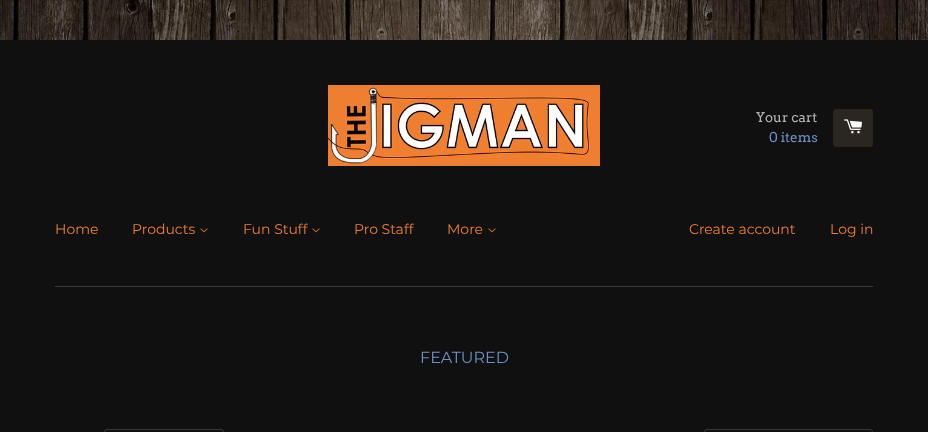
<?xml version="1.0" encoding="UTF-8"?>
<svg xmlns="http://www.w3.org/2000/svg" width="928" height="432">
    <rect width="100%" height="100%" fill="#FFFFFF"/>
    <image x="0" y="0" width="928" height="40" href="img_01.png"/>
    <rect x="0" y="40" width="928" height="392" fill="#101010"/>
    <image x="328" y="85" width="272" height="81" href="img_02.png"/>
    <text x="756" y="122" font-family="Arvo" font-size="13.5" fill="#B3B3B3">Your cart</text>
    <text x="769" y="142" font-family="Arvo" font-size="13.5" fill="#6F91C7">0 items</text>
    <rect x="833" y="109" width="40" height="38" rx="3" fill="#2B2720"/>
    <image x="844" y="119" width="18" height="15" href="img_03.png"/>
    <text x="55" y="234" font-family="Montserrat" font-size="14" font-weight="100" fill="#F07F32">Home</text>
    <text x="132" y="234" font-family="Montserrat" font-size="14" font-weight="100" fill="#F07F32">Products</text>
    <image x="200" y="228" width="8" height="5" href="img_04.png"/>
    <text x="243" y="234" font-family="Montserrat" font-size="14" font-weight="100" fill="#F07F32">Fun Stuff</text>
    <image x="312" y="228" width="8" height="5" href="img_04.png"/>
    <text x="354" y="234" font-family="Montserrat" font-size="14" font-weight="100" fill="#F07F32">Pro Staff</text>
    <text x="447" y="234" font-family="Montserrat" font-size="14" font-weight="100" fill="#F07F32">More</text>
    <image x="488" y="228" width="8" height="5" href="img_04.png"/>
    <text x="689" y="234" font-family="Montserrat" font-size="14" font-weight="100" fill="#F07F32">Create account</text>
    <text x="830" y="234" font-family="Montserrat" font-size="14" font-weight="100" fill="#F07F32">Log in</text>
    <rect x="55" y="286" width="818" height="1" fill="#393939"/>
    <text x="420" y="363" font-family="Montserrat" font-size="16" font-weight="100" fill="#6F91C7">FEATURED</text>
    <rect x="104.5" y="429.5" width="119" height="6" rx="2.5" fill="none" stroke="#393939"/>
    <rect x="704.5" y="429.5" width="168" height="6" rx="2.5" fill="none" stroke="#393939"/>
</svg>
